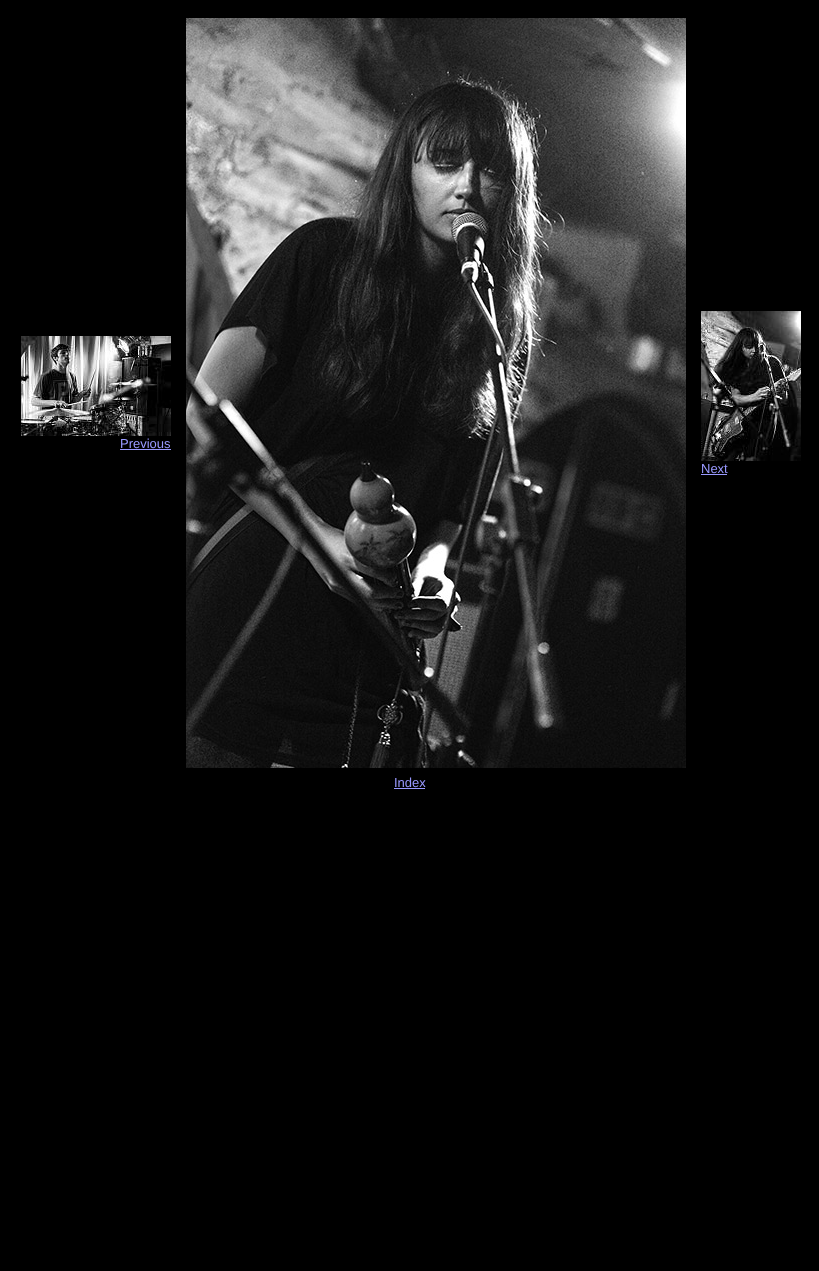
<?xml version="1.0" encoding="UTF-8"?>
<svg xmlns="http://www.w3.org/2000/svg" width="819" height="1271">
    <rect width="100%" height="100%" fill="#000000"/>
    <image x="21" y="336" width="150" height="100" href="img_01.png"/>
    <text x="120" y="448" font-family="Liberation Sans" font-size="13" fill="#9999FF">Previous</text>
    <rect x="120" y="449" width="51" height="1" fill="#9999FF"/>
    <image x="186" y="18" width="500" height="750" href="img_02.png"/>
    <image x="701" y="311" width="100" height="150" href="img_03.png"/>
    <text x="701" y="473" font-family="Liberation Sans" font-size="13" fill="#9999FF">Next</text>
    <rect x="701" y="474" width="26" height="1" fill="#9999FF"/>
    <text x="394" y="787" font-family="Liberation Sans" font-size="13" fill="#9999FF">Index</text>
    <rect x="394" y="788" width="31" height="1" fill="#9999FF"/>
</svg>
